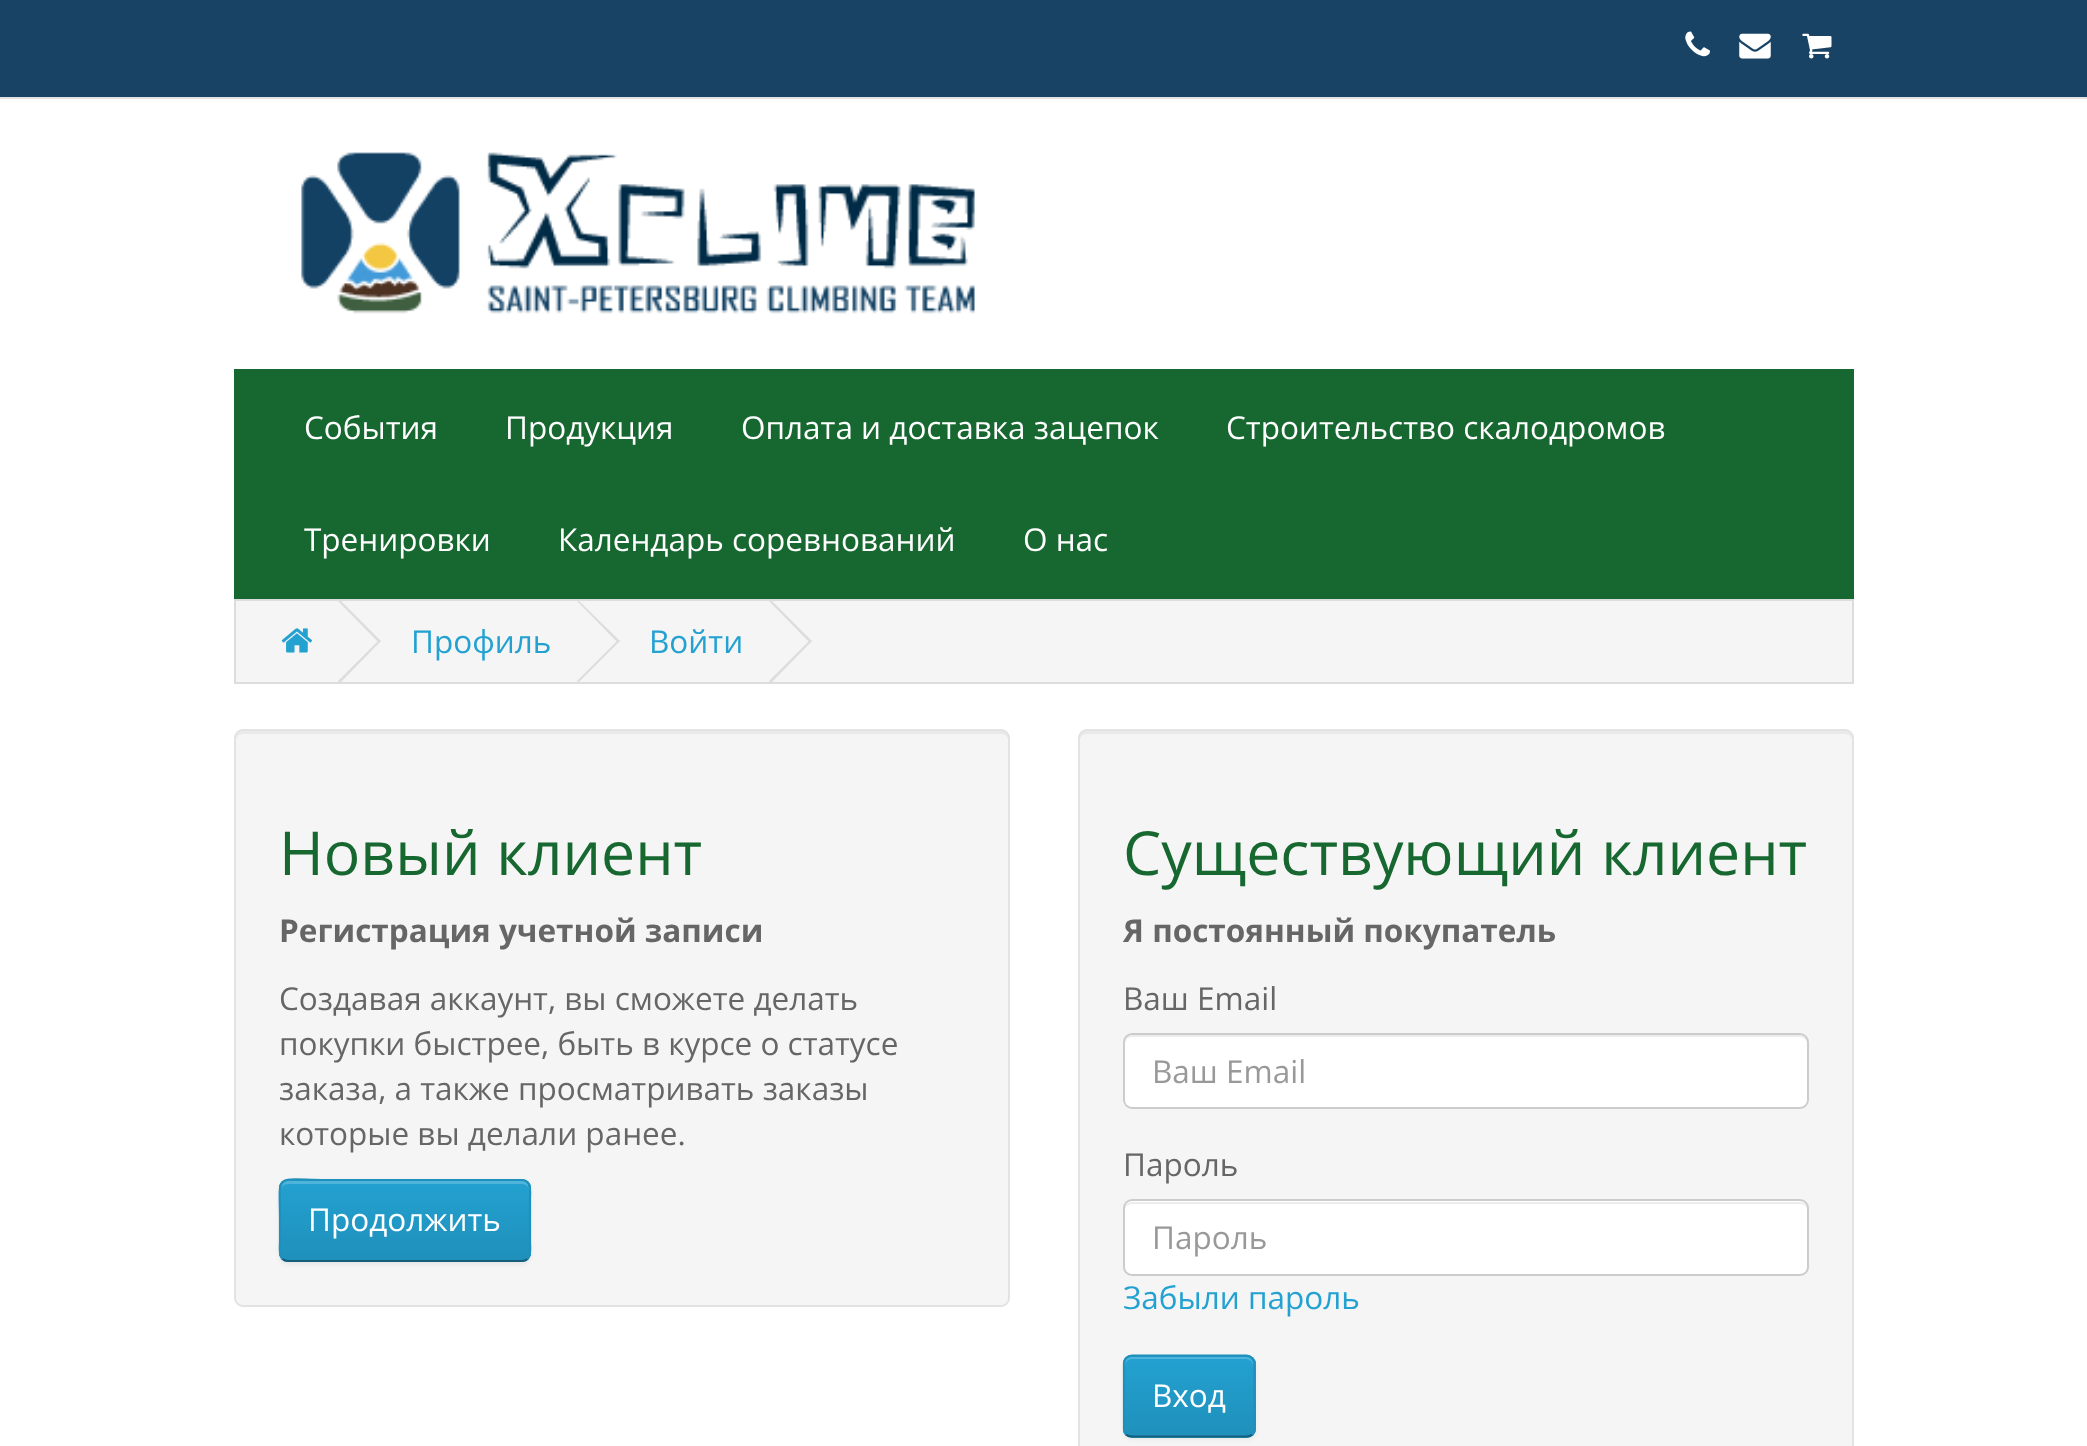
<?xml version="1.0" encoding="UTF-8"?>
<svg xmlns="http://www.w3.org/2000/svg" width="2087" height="1446">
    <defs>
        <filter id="blur1" x="-50%" y="-200%" width="200%" height="500%"><feGaussianBlur stdDeviation="2"/></filter>
        <clipPath id="clip1"><rect x="279" y="1179" width="252" height="83" rx="9"/></clipPath>
        <linearGradient id="g1" gradientUnits="userSpaceOnUse" x1="405" y1="1181" x2="405" y2="1260"><stop offset="0" stop-color="#23A1D1"/><stop offset="1" stop-color="#1F90BB"/></linearGradient>
        <clipPath id="clip2"><rect x="1123" y="1355" width="133" height="83" rx="9"/></clipPath>
        <linearGradient id="g2" gradientUnits="userSpaceOnUse" x1="1189" y1="1357" x2="1189" y2="1436"><stop offset="0" stop-color="#23A1D1"/><stop offset="1" stop-color="#1F90BB"/></linearGradient>
    </defs>
    <rect width="100%" height="100%" fill="#FFFFFF"/>
    <rect x="0" y="0" width="2087" height="97" fill="#194364"/>
    <rect x="0" y="97" width="2087" height="2" fill="#E2E2E2"/>
    <image x="1685" y="31" width="25" height="26" href="img_01.png"/>
    <image x="1739" y="33" width="32" height="26" href="img_02.png"/>
    <image x="1802" y="33" width="30" height="26" href="img_03.png"/>
    <image x="301" y="152" width="674" height="162" href="img_04.png"/>
    <rect x="234" y="369" width="1620" height="230" fill="#176830"/>
    <text x="304" y="439" font-family="Open Sans" font-size="31.5" fill="#FFFFFF">События</text>
    <text x="505" y="439" font-family="Open Sans" font-size="31.5" fill="#FFFFFF">Продукция</text>
    <text x="741" y="439" font-family="Open Sans" font-size="31.5" fill="#FFFFFF">Оплата и доставка зацепок</text>
    <text x="1226" y="439" font-family="Open Sans" font-size="31.5" fill="#FFFFFF">Строительство скалодромов</text>
    <text x="304" y="551" font-family="Open Sans" font-size="31.5" fill="#FFFFFF">Тренировки</text>
    <text x="558" y="551" font-family="Open Sans" font-size="31.5" fill="#FFFFFF">Календарь соревнований</text>
    <text x="1023" y="551" font-family="Open Sans" font-size="31.5" fill="#FFFFFF">О нас</text>
    <rect x="235" y="600" width="1618" height="83" fill="#F5F5F5" stroke="#DDDDDD" stroke-width="2"/>
    <image x="281" y="628" width="32" height="25" href="img_05.png"/>
    <path d="M 338 601 L 340 600 L 381 641 L 379 643 Z" fill="#DDDDDD"/>
    <path d="M 338 681 L 379 640 L 381 641 L 340 683 Z" fill="#DDDDDD"/>
    <text x="411" y="653" font-family="Open Sans" font-size="31.5" fill="#23A1D1">Профиль</text>
    <path d="M 577 601 L 578 600 L 620 641 L 618 643 Z" fill="#DDDDDD"/>
    <path d="M 577 681 L 618 640 L 620 641 L 578 683 Z" fill="#DDDDDD"/>
    <text x="649" y="653" font-family="Open Sans" font-size="31.5" fill="#23A1D1">Войти</text>
    <path d="M 769 601 L 771 600 L 812 641 L 810 643 Z" fill="#DDDDDD"/>
    <path d="M 769 681 L 810 640 L 812 641 L 771 683 Z" fill="#DDDDDD"/>
    <rect x="234" y="729" width="776" height="578" rx="9" fill="#F5F5F5"/>
    <path d="M 243 734 H 1001 C 1005 734 1008 737 1008 740 V 738 C 1008 734 1005 731 1001 731 H 243 C 239 731 236 734 236 738 V 740 C 236 737 239 734 243 734 Z" fill="#E9E9E9"/>
    <rect x="235" y="730" width="774" height="576" rx="8" fill="none" stroke="#E3E3E3" stroke-width="2"/>
    <text x="279" y="875" font-family="Open Sans" font-size="60.75" fill="#176830">Новый клиент</text>
    <text x="279" y="942" font-family="Open Sans" font-size="31.5" font-weight="700" fill="#666666">Регистрация учетной записи</text>
    <text font-family="Open Sans" font-size="31.5" fill="#666666">
        <tspan x="279" y="1010">Создавая аккаунт, вы сможете делать</tspan>
        <tspan x="279" y="1055">покупки быстрее, быть в курсе о статусе</tspan>
        <tspan x="279" y="1100">заказа, а также просматривать заказы</tspan>
        <tspan x="279" y="1145">которые вы делали ранее.</tspan>
    </text>
    <rect x="279" y="1181" width="252" height="84" rx="9" fill="#000000" fill-opacity="0.05" filter="url(#blur1)"/>
    <rect x="279" y="1179" width="252" height="83" rx="9" fill="#229AC8"/>
    <g clip-path="url(#clip1)">
        <rect x="279" y="1181" width="252" height="79" fill="url(#g1)"/>
    </g>
    <path d="M 288 1184 H 522 C 526 1184 529 1187 529 1190 V 1188 C 529 1184 526 1181 522 1181 H 288 C 284 1181 281 1184 281 1188 V 1190 C 281 1187 284 1184 288 1184 Z" fill="#4FB4DA"/>
    <path d="M 527.5 1259 C 526 1260.5 524 1261 522 1261 H 288 C 286 1261 284 1260.5 282.5 1259" fill="none" stroke="#145E7A" stroke-width="2.2"/>
    <path d="M 282.5 1259 C 278.5 1255 280 1246.5 280 1242.5 V 1220.5 C 280 1171 272.5 1180 327 1180 H 522 C 532 1180 530 1193 530 1199 V 1242.5 C 530 1246.5 531.5 1255 527.5 1259" fill="none" stroke="#1F90BB" stroke-width="2.2"/>
    <text x="308" y="1231" font-family="Open Sans" font-size="31.5" fill="#FFFFFF">Продолжить</text>
    <rect x="1078" y="729" width="776" height="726" rx="9" fill="#F5F5F5"/>
    <path d="M 1087 734 H 1845 C 1849 734 1852 737 1852 740 V 738 C 1852 734 1849 731 1845 731 H 1087 C 1083 731 1080 734 1080 738 V 740 C 1080 737 1083 734 1087 734 Z" fill="#E9E9E9"/>
    <rect x="1079" y="730" width="774" height="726" rx="8" fill="none" stroke="#E3E3E3" stroke-width="2"/>
    <text x="1123" y="875" font-family="Open Sans" font-size="60.75" fill="#176830">Существующий клиент</text>
    <text x="1123" y="942" font-family="Open Sans" font-size="31.5" font-weight="700" fill="#666666">Я постоянный покупатель</text>
    <text x="1123" y="1010" font-family="Open Sans" font-size="31.5" fill="#666666">Ваш Email</text>
    <rect x="1123" y="1033" width="686" height="76" rx="9" fill="#FFFFFF"/>
    <path d="M 1132 1037 H 1800 C 1804 1037 1807 1040 1807 1044 V 1042 C 1807 1038 1804 1035 1800 1035 H 1132 C 1128 1035 1125 1038 1125 1042 V 1044 C 1125 1040 1128 1037 1132 1037 Z" fill="#ECECEC"/>
    <rect x="1124" y="1034" width="684" height="74" rx="8" fill="none" stroke="#CCCCCC" stroke-width="2"/>
    <text x="1152" y="1083" font-family="Open Sans" font-size="31.5" fill="#999999">Ваш Email</text>
    <text x="1123" y="1176" font-family="Open Sans" font-size="31.5" fill="#666666">Пароль</text>
    <rect x="1123" y="1199" width="686" height="77" rx="9" fill="#FFFFFF"/>
    <path d="M 1132 1204 H 1800 C 1804 1204 1807 1207 1807 1210 C 1807 1206 1805 1202 1800 1202 H 1132 C 1127 1202 1125 1206 1125 1210 C 1125 1207 1128 1204 1132 1204 Z" fill="#ECECEC"/>
    <rect x="1124" y="1200" width="684" height="75" rx="8" fill="none" stroke="#CCCCCC" stroke-width="2"/>
    <text x="1152" y="1249" font-family="Open Sans" font-size="31.5" fill="#999999">Пароль</text>
    <text x="1123" y="1309" font-family="Open Sans" font-size="31.5" fill="#23A1D1">Забыли пароль</text>
    <rect x="1123" y="1357" width="133" height="83" rx="9" fill="#000000" fill-opacity="0.05" filter="url(#blur1)"/>
    <rect x="1123" y="1355" width="133" height="83" rx="9" fill="#229AC8"/>
    <g clip-path="url(#clip2)">
        <rect x="1123" y="1357" width="133" height="79" fill="url(#g2)"/>
    </g>
    <path d="M 1132 1359 H 1246 C 1250 1359 1253 1362 1253 1366 V 1364 C 1253 1360 1250 1357 1246 1357 H 1132 C 1128 1357 1125 1360 1125 1364 V 1366 C 1125 1362 1128 1359 1132 1359 Z" fill="#4FB4DA"/>
    <path d="M 1252 1434.5 C 1250.5 1436 1248.5 1436.5 1246.5 1436.5 H 1132 C 1129.5 1436.5 1127.5 1436 1126 1434.5" fill="none" stroke="#145E7A" stroke-width="2.2"/>
    <path d="M 1126 1434.5 C 1124.5 1433 1124 1431 1124 1429 V 1363.5 C 1124 1361.5 1124.5 1359.5 1126 1358 C 1127.5 1356.5 1129.5 1355.5 1132 1355.5 H 1246.5 C 1248.5 1355.5 1250.5 1356.5 1252 1358 C 1253.5 1359.5 1254.5 1361.5 1254.5 1363.5 V 1429 C 1254.5 1431 1253.5 1433 1252 1434.5" fill="none" stroke="#1F90BB" stroke-width="2.2"/>
    <text x="1152" y="1407" font-family="Open Sans" font-size="31.5" fill="#FFFFFF">Вход</text>
</svg>
